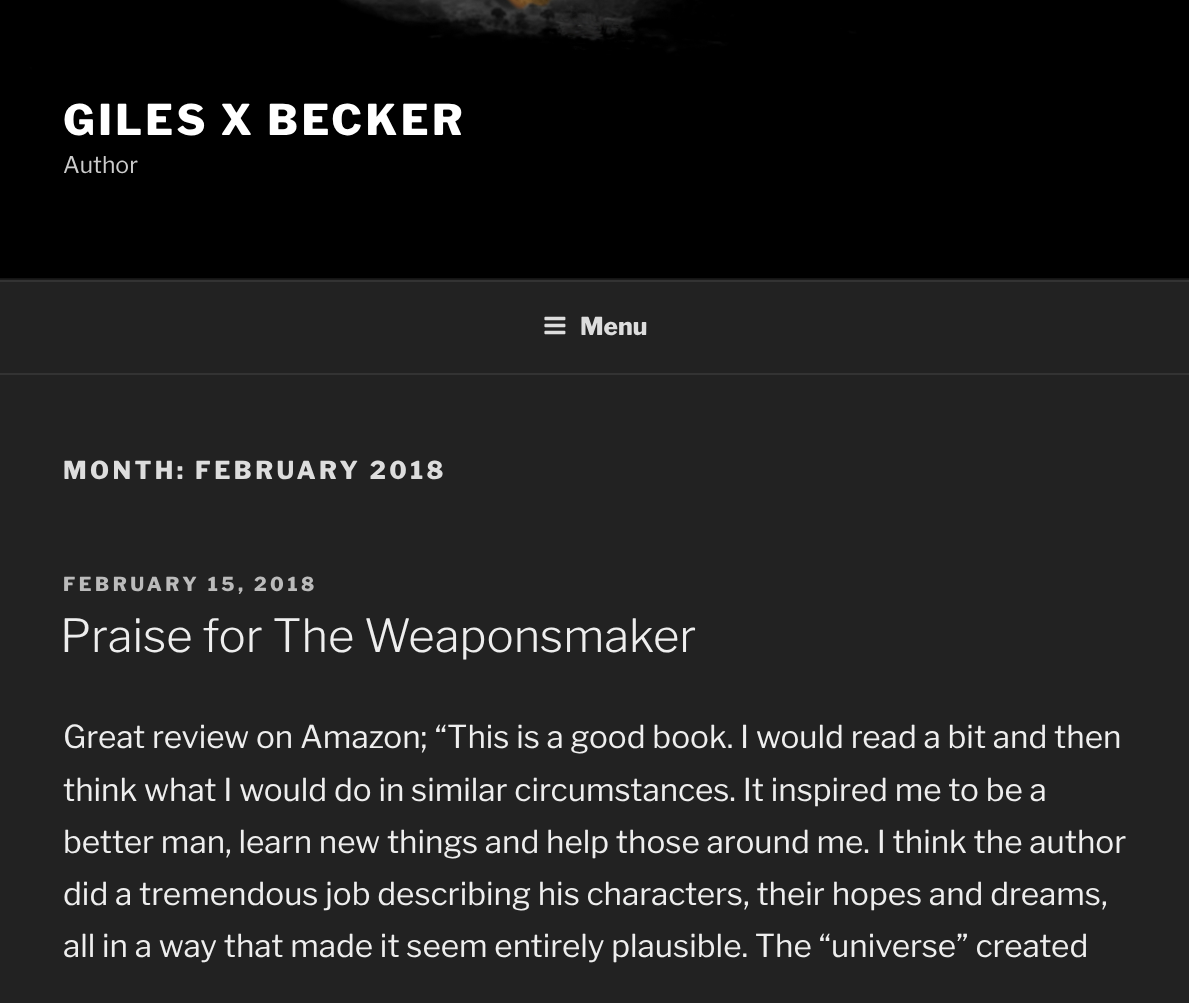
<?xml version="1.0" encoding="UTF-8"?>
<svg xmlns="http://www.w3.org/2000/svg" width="1189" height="1003">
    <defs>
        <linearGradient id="g1" gradientUnits="userSpaceOnUse" x1="595" y1="0" x2="595" y2="280"><stop offset="0" stop-color="#000000" stop-opacity="0"/><stop offset="0.75" stop-color="#000000" stop-opacity="0.3"/><stop offset="1" stop-color="#000000" stop-opacity="0.3"/></linearGradient>
    </defs>
    <rect width="100%" height="100%" fill="#222222"/>
    <rect x="0" y="278" width="1189" height="2" fill="#262626"/>
    <image x="0" y="0" width="1189" height="279" href="img_01.png"/>
    <rect x="0" y="278" width="1189" height="2" fill="url(#g1)"/>
    <text x="63" y="135" font-family="Libre Franklin" font-size="42" font-weight="100" letter-spacing="3.4" fill="#FFFFFF">GILES X BECKER</text>
    <text x="63" y="173" font-family="'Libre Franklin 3'" font-size="23" font-weight="100" fill="#CCCCCC">Author</text>
    <rect x="0" y="280" width="1189" height="2" fill="#333333"/>
    <rect x="0" y="373" width="1189" height="2" fill="#333333"/>
    <image x="544" y="316" width="22" height="19" href="img_02.png"/>
    <text x="580" y="335" font-family="Libre Franklin" font-size="24.5" font-weight="100" fill="#DDDDDD">Menu</text>
    <text x="63" y="479" font-family="Libre Franklin" font-size="24.5" font-weight="100" letter-spacing="3.4" fill="#DDDDDD">MONTH: FEBRUARY 2018</text>
    <text x="63" y="591" font-family="Libre Franklin" font-size="19.25" font-weight="100" letter-spacing="3.5" fill="#BBBBBB">FEBRUARY 15, 2018</text>
    <text x="60" y="652" font-family="'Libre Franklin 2'" font-size="45.5" font-weight="100" fill="#EEEEEE">Praise for The Weaponsmaker</text>
    <text font-family="'Libre Franklin 3'" font-size="31.5" font-weight="100" fill="#EEEEEE">
        <tspan x="63" y="748">Great review on Amazon; “This is a good book. I would read a bit and then</tspan>
        <tspan x="63" y="801">think what I would do in similar circumstances. It inspired me to be a</tspan>
        <tspan x="63" y="853">better man, learn new things and help those around me. I think the author</tspan>
        <tspan x="63" y="905">did a tremendous job describing his characters, their hopes and dreams,</tspan>
        <tspan x="63" y="957">all in a way that made it seem entirely plausible. The “universe” created</tspan>
    </text>
</svg>
